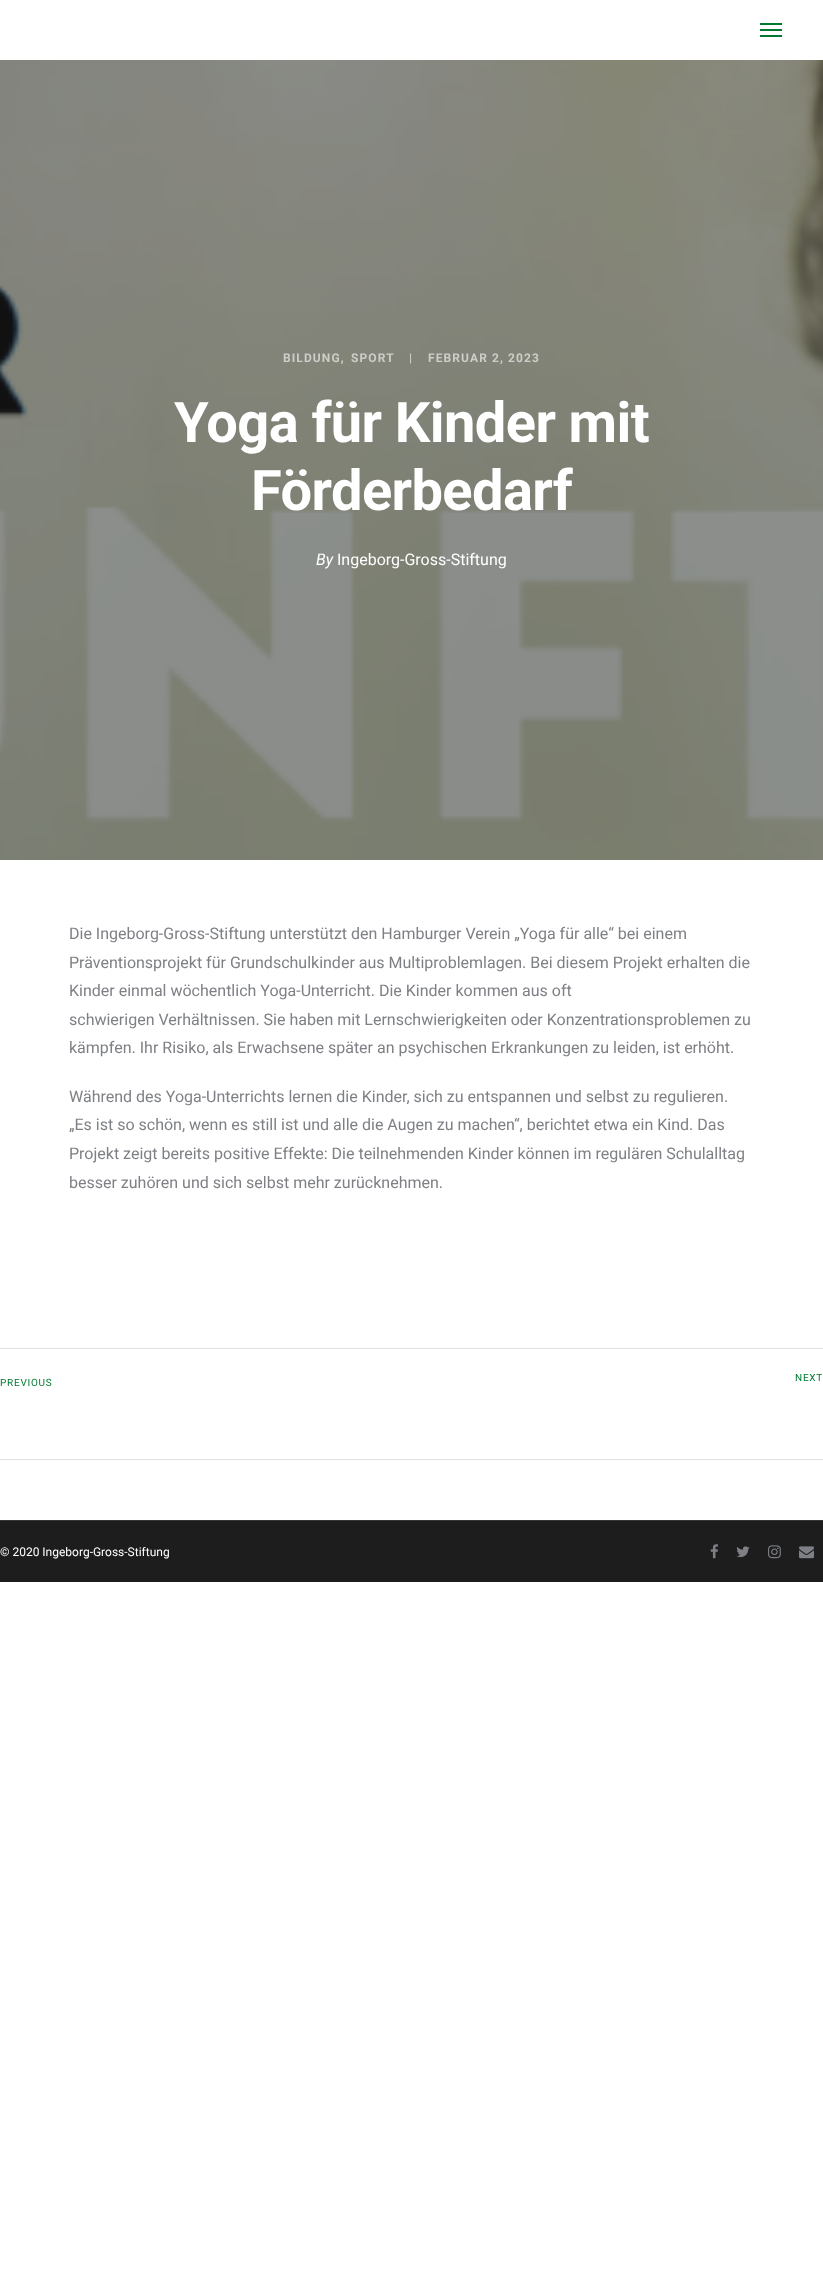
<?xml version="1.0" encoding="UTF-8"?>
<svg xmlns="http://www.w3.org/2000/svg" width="823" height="2276">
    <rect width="100%" height="100%" fill="#FFFFFF"/>
    <rect x="760" y="29" width="22" height="2" fill="#007A33"/>
    <rect x="760" y="23" width="22" height="2" fill="#007A33"/>
    <rect x="760" y="35" width="22" height="2" fill="#007A33"/>
    <image x="0" y="60" width="823" height="800" href="img_01.png"/>
    <text x="283" y="362" font-family="Roboto" font-size="12" font-weight="700" letter-spacing="1.1" fill="#CDCEC9">BILDUNG,</text>
    <text x="351" y="362" font-family="Roboto" font-size="12" font-weight="700" letter-spacing="1.1" fill="#CDCEC9">SPORT</text>
    <text x="409" y="362" font-family="Roboto" font-size="12" font-weight="700" letter-spacing="1.1" fill="#CDCEC9">|</text>
    <text x="428" y="362" font-family="Roboto" font-size="12" font-weight="700" letter-spacing="1.1" fill="#CDCEC9">FEBRUAR 2, 2023</text>
    <text x="174" y="442" font-family="Roboto" font-size="56" font-weight="700" letter-spacing="-0.6" fill="#FFFFFF">Yoga für Kinder mit</text>
    <text x="251" y="510" font-family="Roboto" font-size="56" font-weight="700" letter-spacing="-0.6" fill="#FFFFFF">Förderbedarf</text>
    <text x="316" y="565" font-family="Roboto" font-size="16" font-style="italic" fill="#FFFFFF">By</text>
    <text x="337" y="565" font-family="Roboto" font-size="16" fill="#FFFFFF">Ingeborg-Gross-Stiftung</text>
    <text font-family="Roboto" font-size="16" fill="#7E8085">
        <tspan x="69" y="939">Die Ingeborg-Gross-Stiftung unterstützt den Hamburger Verein „Yoga für alle“ bei einem</tspan>
        <tspan x="69" y="968">Präventionsprojekt für Grundschulkinder aus Multiproblemlagen. Bei diesem Projekt erhalten die</tspan>
        <tspan x="69" y="996">Kinder einmal wöchentlich Yoga-Unterricht. Die Kinder kommen aus oft</tspan>
        <tspan x="69" y="1025">schwierigen Verhältnissen. Sie haben mit Lernschwierigkeiten oder Konzentrationsproblemen zu</tspan>
        <tspan x="69" y="1053">kämpfen. Ihr Risiko, als Erwachsene später an psychischen Erkrankungen zu leiden, ist erhöht.</tspan>
    </text>
    <text font-family="Roboto" font-size="16" fill="#7E8085">
        <tspan x="69" y="1102">Während des Yoga-Unterrichts lernen die Kinder, sich zu entspannen und selbst zu regulieren.</tspan>
        <tspan x="69" y="1130">„Es ist so schön, wenn es still ist und alle die Augen zu machen“, berichtet etwa ein Kind. Das</tspan>
        <tspan x="69" y="1159">Projekt zeigt bereits positive Effekte: Die teilnehmenden Kinder können im regulären Schulalltag</tspan>
        <tspan x="69" y="1188">besser zuhören und sich selbst mehr zurücknehmen.</tspan>
    </text>
    <rect x="0" y="1348" width="823" height="1" fill="#DFDFDF"/>
    <rect x="0" y="1459" width="823" height="1" fill="#DFDFDF"/>
    <text x="795" y="1381" font-family="Roboto" font-size="10" letter-spacing="0.75" fill="#007A33">NEXT</text>
    <text x="0" y="1386" font-family="Roboto" font-size="10" letter-spacing="0.75" fill="#007A33">PREVIOUS</text>
    <rect x="0" y="1521" width="823" height="61" fill="#1D1D1D"/>
    <rect x="0" y="1520" width="823" height="1" fill="#363636"/>
    <text x="0" y="1556" font-family="Roboto" font-size="12" fill="#FFFFFF">© 2020 Ingeborg-Gross-Stiftung</text>
    <image x="710" y="1544" width="8" height="15" href="img_02.png"/>
    <image x="736" y="1546" width="14" height="12" href="img_03.png"/>
    <image x="768" y="1545" width="13" height="14" href="img_04.png"/>
    <image x="799" y="1546" width="15" height="13" href="img_05.png"/>
</svg>
